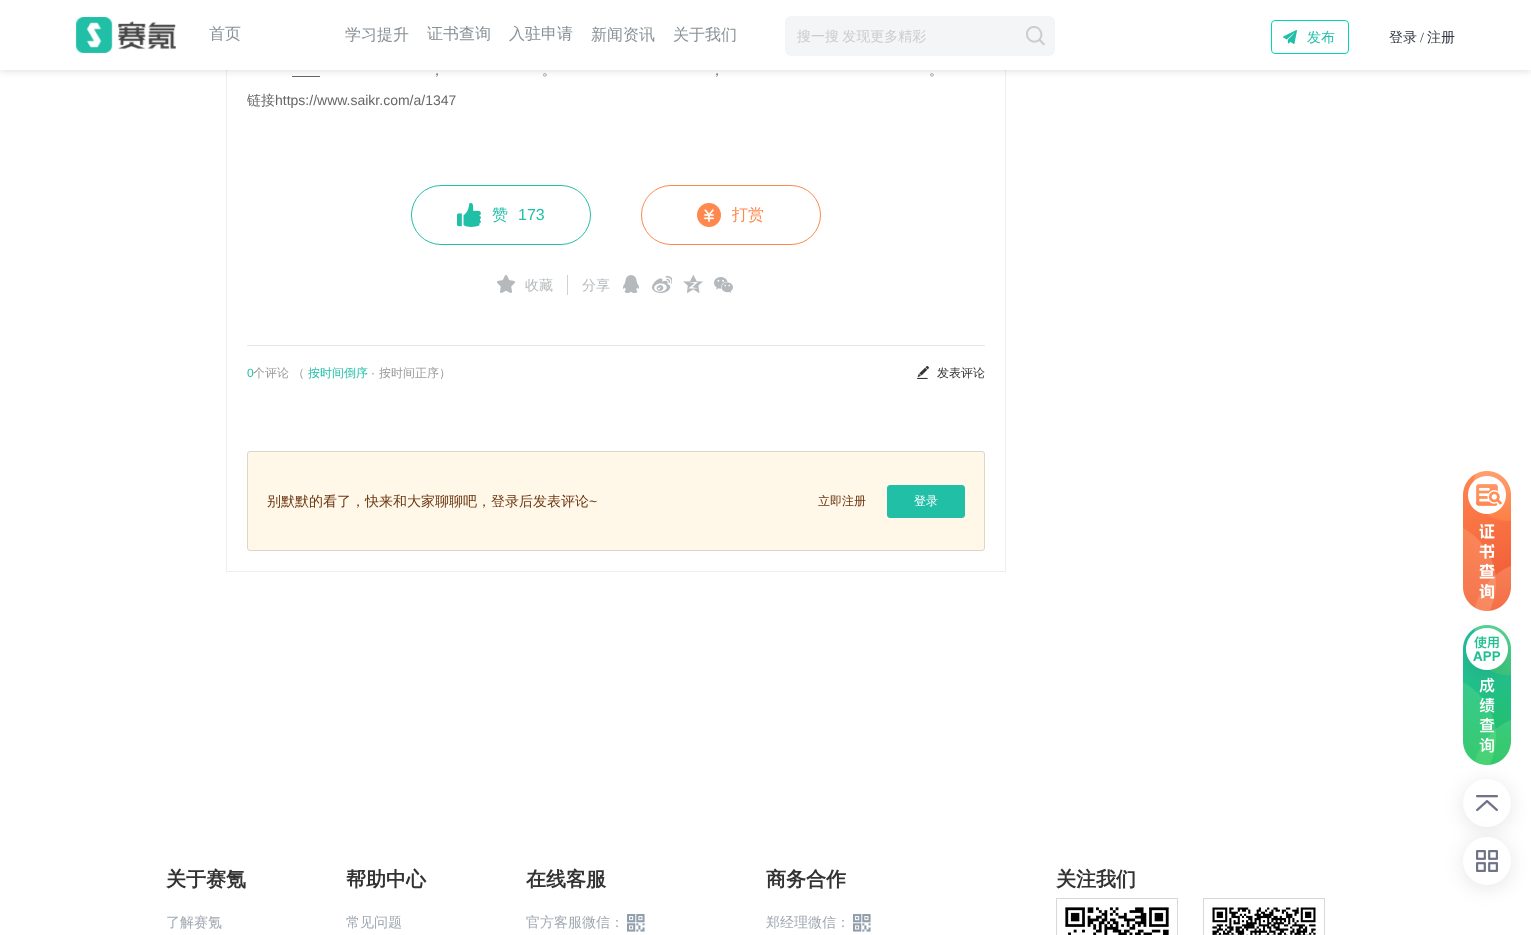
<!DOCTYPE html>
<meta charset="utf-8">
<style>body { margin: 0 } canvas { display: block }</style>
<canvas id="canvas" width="1531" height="935"></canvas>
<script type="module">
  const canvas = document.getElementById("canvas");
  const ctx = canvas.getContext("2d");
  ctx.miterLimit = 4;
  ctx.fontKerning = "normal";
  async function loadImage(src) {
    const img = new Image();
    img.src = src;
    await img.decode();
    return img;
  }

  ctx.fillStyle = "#ffffff";
  ctx.fillRect(0, 0, 1531, 935);
  ctx.strokeStyle = "#eeeeee";
  ctx.strokeRect(226.5, -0.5, 779, 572);
  ctx.fillStyle = "#666666";
  ctx.fillRect(292, 76, 28, 1);
  ctx.fillStyle = "rgba(0, 0, 0, 0.1)";
  ctx.filter = "blur(3px)";
  ctx.beginPath();
  ctx.rect(0, 2, 1531, 70);
  ctx.fill();
  ctx.filter = "none";
  ctx.fillStyle = "#ffffff";
  ctx.fillRect(0, 0, 1531, 70);
  ctx.drawImage(await loadImage("img1.png"), 75, 17, 101, 36);
  ctx.font = "500 16px WenQuanYi Zen Hei";
  ctx.fillStyle = "#889196";
  ctx.fillText("首页", 209, 39);
  ctx.fillText("学习提升", 345, 40);
  ctx.fillText("证书查询", 427, 39);
  ctx.fillText("入驻申请", 509, 39);
  ctx.fillText("新闻资讯", 591, 40);
  ctx.fillText("关于我们", 673, 40);
  ctx.fillStyle = "#f3f5f6";
  ctx.beginPath();
  ctx.roundRect(785, 16, 270, 40, 6);
  ctx.fill();
  ctx.wordSpacing = "-1px";
  ctx.font = "500 14px WenQuanYi Zen Hei";
  ctx.fillStyle = "#cccccc";
  ctx.fillText("搜一搜 发现更多精彩", 797, 41);
  ctx.drawImage(await loadImage("img2.png"), 1026, 26, 19, 20);
  ctx.beginPath();
  ctx.roundRect(1271.5, 20.5, 77, 33, 3.5);
  ctx.strokeStyle = "#00d6b5";
  ctx.stroke();
  ctx.drawImage(await loadImage("img3.png"), 1283, 30, 14, 14);
  ctx.wordSpacing = "0px";
  ctx.fillStyle = "#22bfa7";
  ctx.fillText("发布", 1307, 42);
  ctx.fillStyle = "#31363f";
  ctx.fillText("登录", 1389, 42);
  ctx.font = "14px Liberation Serif";
  ctx.fillText("/", 1420, 42);
  ctx.font = "500 14px WenQuanYi Zen Hei";
  ctx.fillText("注册", 1427, 42);
  ctx.fillStyle = "#666666";
  ctx.fillText("，", 430, 75);
  ctx.fillText("。", 542, 75);
  ctx.fillText("，", 710, 75);
  ctx.fillText("。", 929, 75);
  ctx.fillText("链接", 247, 105);
  ctx.font = "14px Liberation Sans";
  ctx.fillText("https://www.saikr.com/a/1347", 275, 105);
  ctx.beginPath();
  ctx.roundRect(411.5, 185.5, 179, 59, 29.5);
  ctx.strokeStyle = "#22bfa7";
  ctx.stroke();
  ctx.drawImage(await loadImage("img4.png"), 457, 203, 24, 24);
  ctx.font = "500 16px WenQuanYi Zen Hei";
  ctx.fillStyle = "#22bfa7";
  ctx.fillText("赞", 492, 220);
  ctx.font = "16px Liberation Sans";
  ctx.fillText("173", 518, 220);
  ctx.beginPath();
  ctx.roundRect(641.5, 185.5, 179, 59, 29.5);
  ctx.strokeStyle = "#ff884e";
  ctx.stroke();
  ctx.drawImage(await loadImage("img5.png"), 697, 203, 24, 24);
  ctx.font = "500 16px WenQuanYi Zen Hei";
  ctx.fillStyle = "#ff884e";
  ctx.fillText("打赏", 732, 220);
  ctx.fillStyle = "#cfd2d5";
  ctx.fillRect(567, 275, 1, 20);
  ctx.drawImage(await loadImage("img6.png"), 497, 275, 18, 18);
  ctx.font = "500 14px WenQuanYi Zen Hei";
  ctx.fillStyle = "#b5b9bc";
  ctx.fillText("收藏", 525, 290);
  ctx.fillText("分享", 582, 290);
  ctx.drawImage(await loadImage("img7.png"), 623, 275, 16, 18);
  ctx.drawImage(await loadImage("img8.png"), 652, 276, 20, 17);
  ctx.drawImage(await loadImage("img9.png"), 683, 275, 20, 18);
  ctx.drawImage(await loadImage("img10.png"), 714, 277, 19, 16);
  ctx.fillStyle = "#e6e6e6";
  ctx.fillRect(247, 345, 738, 1);
  ctx.font = "12px Liberation Sans";
  ctx.fillStyle = "#22bfa7";
  ctx.fillText("0", 247, 377);
  ctx.font = "500 12px WenQuanYi Zen Hei";
  ctx.fillStyle = "#999999";
  ctx.fillText("个评论 （", 253, 377);
  ctx.fillStyle = "#22bfa7";
  ctx.fillText("按时间倒序", 308, 377);
  ctx.font = "12px Liberation Sans";
  ctx.fillStyle = "#999999";
  ctx.fillText("·", 371, 377);
  ctx.font = "500 12px WenQuanYi Zen Hei";
  ctx.fillText("按时间正序）", 379, 377);
  ctx.drawImage(await loadImage("img11.png"), 917, 366, 12, 13);
  ctx.fillStyle = "#333333";
  ctx.fillText("发表评论", 937, 377);
  ctx.fillStyle = "#fff7e7";
  ctx.beginPath();
  ctx.roundRect(247.5, 451.5, 737, 99, 2.5);
  ctx.fill();
  ctx.strokeStyle = "#ded6c5";
  ctx.stroke();
  ctx.font = "500 14px WenQuanYi Zen Hei";
  ctx.fillStyle = "#6b3612";
  ctx.fillText("别默默的看了，快来和大家聊聊吧，登录后发表评论", 267, 506);
  ctx.font = "14px Liberation Sans";
  ctx.fillText("~", 589, 506);
  ctx.font = "500 12px WenQuanYi Zen Hei";
  ctx.fillText("立即注册", 818, 505);
  ctx.fillStyle = "#22bfa7";
  ctx.beginPath();
  ctx.roundRect(887.5, 485.5, 77, 32, 2.5);
  ctx.fill();
  ctx.strokeStyle = "#22bfa7";
  ctx.stroke();
  ctx.fillStyle = "#ffffff";
  ctx.fillText("登录", 914, 505);
  ctx.font = "bold 20px WenQuanYi Zen Hei";
  ctx.fillStyle = "#333333";
  ctx.fillText("关于赛氪", 166, 886);
  ctx.font = "500 14px WenQuanYi Zen Hei";
  ctx.fillStyle = "#a0a8b0";
  ctx.fillText("了解赛氪", 166, 927);
  ctx.font = "bold 20px WenQuanYi Zen Hei";
  ctx.fillStyle = "#333333";
  ctx.fillText("帮助中心", 346, 886);
  ctx.font = "500 14px WenQuanYi Zen Hei";
  ctx.fillStyle = "#a0a8b0";
  ctx.fillText("常见问题", 346, 927);
  ctx.font = "bold 20px WenQuanYi Zen Hei";
  ctx.fillStyle = "#333333";
  ctx.fillText("在线客服", 526, 886);
  ctx.font = "500 14px WenQuanYi Zen Hei";
  ctx.fillStyle = "#a0a8b0";
  ctx.fillText("官方客服微信：", 526, 927);
  ctx.drawImage(await loadImage("img12.png"), 627, 914, 18, 18);
  ctx.font = "bold 20px WenQuanYi Zen Hei";
  ctx.fillStyle = "#333333";
  ctx.fillText("商务合作", 766, 886);
  ctx.font = "500 14px WenQuanYi Zen Hei";
  ctx.fillStyle = "#a0a8b0";
  ctx.fillText("郑经理微信：", 766, 927);
  ctx.drawImage(await loadImage("img12.png"), 853, 914, 18, 18);
  ctx.font = "bold 20px WenQuanYi Zen Hei";
  ctx.fillStyle = "#333333";
  ctx.fillText("关注我们", 1056, 886);
  ctx.drawImage(await loadImage("img13.png"), 1065, 907, 104, 28);
  ctx.strokeStyle = "#d8d8d8";
  ctx.strokeRect(1056.5, 898.5, 121, 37);
  ctx.drawImage(await loadImage("img14.png"), 1212, 907, 104, 28);
  ctx.strokeRect(1203.5, 898.5, 121, 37);
  ctx.drawImage(await loadImage("img15.png"), 1463, 471, 48, 140);
  ctx.drawImage(await loadImage("img16.png"), 1463, 625, 48, 140);
  ctx.fillStyle = "rgba(0, 0, 0, 0.1)";
  ctx.filter = "blur(10px)";
  ctx.beginPath();
  ctx.roundRect(1463, 782, 48, 48, 24);
  ctx.fill();
  ctx.filter = "none";
  ctx.fillStyle = "#ffffff";
  ctx.beginPath();
  ctx.arc(1487, 803, 24, 0, Math.PI * 2);
  ctx.fill();
  ctx.drawImage(await loadImage("img17.png"), 1476, 795, 22, 16);
  ctx.fillStyle = "rgba(0, 0, 0, 0.1)";
  ctx.filter = "blur(10px)";
  ctx.beginPath();
  ctx.roundRect(1463, 840, 48, 48, 24);
  ctx.fill();
  ctx.filter = "none";
  ctx.fillStyle = "#ffffff";
  ctx.beginPath();
  ctx.arc(1487, 861, 24, 0, Math.PI * 2);
  ctx.fill();
  ctx.drawImage(await loadImage("img18.png"), 1476, 850, 22, 22);
</script>
